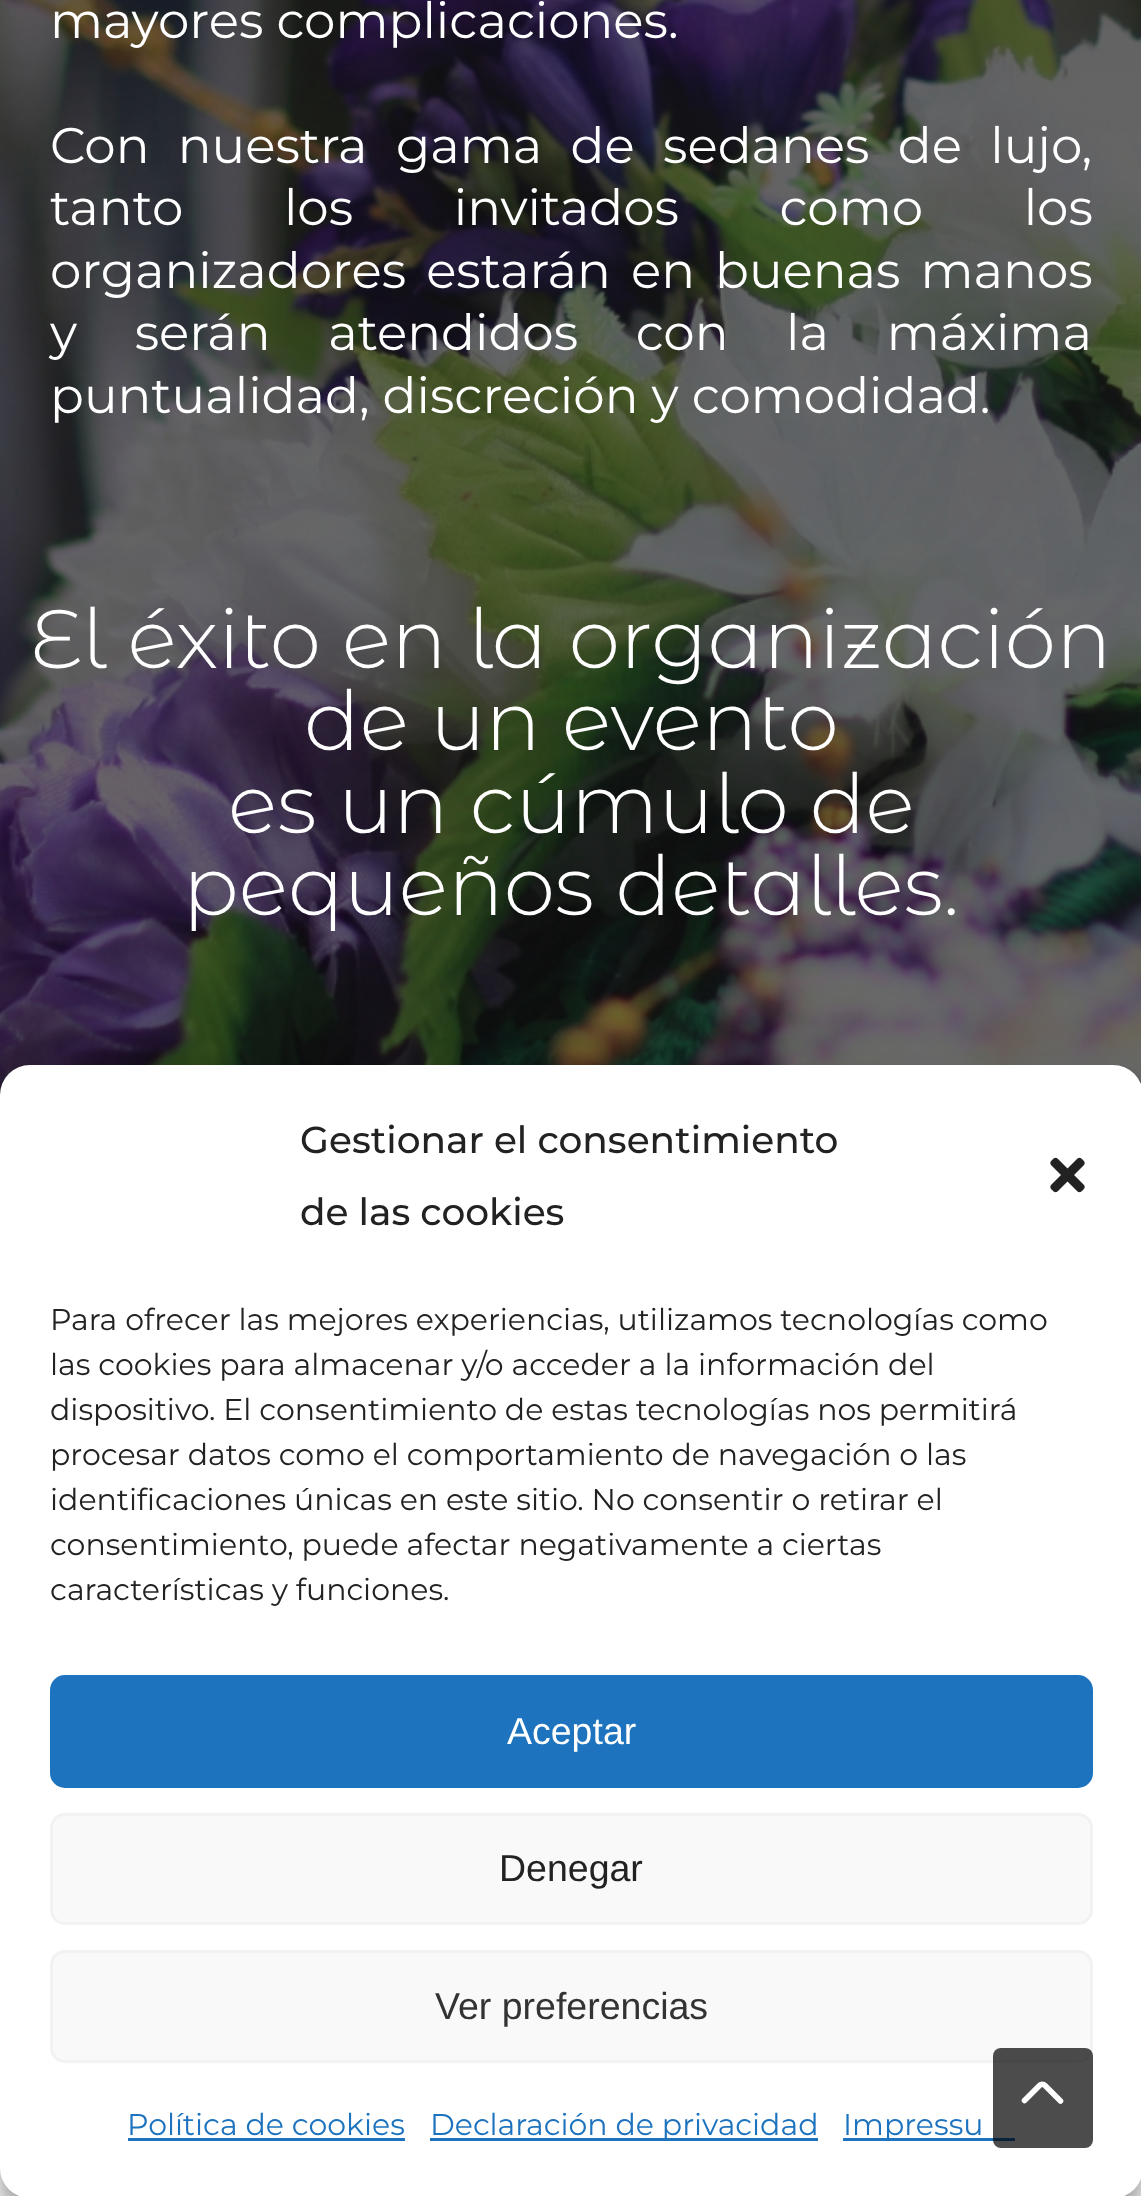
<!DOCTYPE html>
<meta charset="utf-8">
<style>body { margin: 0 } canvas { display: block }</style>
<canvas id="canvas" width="1141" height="2196"></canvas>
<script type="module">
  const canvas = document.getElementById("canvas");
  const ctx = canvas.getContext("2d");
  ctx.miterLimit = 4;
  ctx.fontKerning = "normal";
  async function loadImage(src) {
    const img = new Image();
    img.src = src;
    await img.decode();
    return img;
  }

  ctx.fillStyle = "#ffffff";
  ctx.fillRect(0, 0, 1141, 2196);
  ctx.drawImage(await loadImage("img1.png"), 0, 0, 1141, 1095);
  ctx.font = "50px Montserrat";
  ctx.fillText("mayores complicaciones.", 50, 38);
  ctx.wordSpacing = "15.25px";
  ctx.fillText("Con nuestra gama de sedanes de lujo,", 50, 163);
  ctx.wordSpacing = "87.5px";
  ctx.fillText("tanto los invitados como los", 50, 225);
  ctx.wordSpacing = "7px";
  ctx.fillText("organizadores estarán en buenas manos", 50, 288);
  ctx.wordSpacing = "44.5px";
  ctx.fillText("y serán atendidos con la máxima", 50, 350);
  ctx.wordSpacing = "0px";
  ctx.fillText("puntualidad, discreción y comodidad.", 50, 413);
  ctx.font = "300 82.5px Montserrat Alternates";
  ctx.fillText("El éxito en la organización", 30, 668);
  ctx.fillText("de un evento", 304, 750);
  ctx.fillText("es un cúmulo de", 228, 833);
  ctx.fillText("pequeños detalles.", 183, 915);
  ctx.fillStyle = "rgba(0, 0, 0, 0.23)";
  ctx.filter = "blur(7.5px)";
  ctx.beginPath();
  ctx.roundRect(0, 1080, 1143, 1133, 30);
  ctx.fill();
  ctx.filter = "none";
  ctx.fillStyle = "rgba(0, 0, 0, 0.19)";
  ctx.filter = "blur(25px)";
  ctx.beginPath();
  ctx.roundRect(0, 1090, 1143, 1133, 30);
  ctx.fill();
  ctx.filter = "none";
  ctx.fillStyle = "#ffffff";
  ctx.beginPath();
  ctx.roundRect(0, 1065, 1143, 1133, 30);
  ctx.fill();
  ctx.font = "500 37.5px Montserrat";
  ctx.fillStyle = "#222222";
  ctx.fillText("Gestionar el consentimiento", 300, 1153);
  ctx.fillText("de las cookies", 300, 1225);
  ctx.drawImage(await loadImage("img2.png"), 1050, 1157, 35, 36);
  ctx.font = "30px Montserrat";
  ctx.fillText("Para ofrecer las mejores experiencias, utilizamos tecnologías como", 50, 1330);
  ctx.fillText("las cookies para almacenar y/o acceder a la información del", 50, 1375);
  ctx.fillText("dispositivo. El consentimiento de estas tecnologías nos permitirá", 50, 1420);
  ctx.fillText("procesar datos como el comportamiento de navegación o las", 50, 1465);
  ctx.fillText("identificaciones únicas en este sitio. No consentir o retirar el", 50, 1510);
  ctx.fillText("consentimiento, puede afectar negativamente a ciertas", 50, 1555);
  ctx.fillText("características y funciones.", 50, 1600);
  ctx.fillStyle = "#1e73be";
  ctx.beginPath();
  ctx.roundRect(51.5, 1676.5, 1040, 110, 13.5);
  ctx.fill();
  ctx.strokeStyle = "#1e73be";
  ctx.lineWidth = 3;
  ctx.stroke();
  ctx.font = "37.5px Liberation Sans";
  ctx.fillStyle = "#ffffff";
  ctx.fillText("Aceptar", 507, 1744);
  ctx.fillStyle = "#f9f9f9";
  ctx.beginPath();
  ctx.roundRect(51.5, 1814.5, 1040, 109, 13.5);
  ctx.fill();
  ctx.strokeStyle = "#f2f2f2";
  ctx.stroke();
  ctx.fillStyle = "#222222";
  ctx.fillText("Denegar", 499, 1881);
  ctx.fillStyle = "#f9f9f9";
  ctx.beginPath();
  ctx.roundRect(51.5, 1951.5, 1040, 110, 13.5);
  ctx.fill();
  ctx.stroke();
  ctx.fillStyle = "#333333";
  ctx.fillText("Ver preferencias", 435, 2019);
  ctx.font = "30px Montserrat";
  ctx.fillStyle = "#1e73be";
  ctx.fillText("Política de cookies", 127, 2135);
  ctx.fillRect(128, 2138, 277, 3);
  ctx.fillRect(430, 2138, 388, 3);
  ctx.fillText("Declaración de privacidad", 430, 2135);
  ctx.fillRect(843, 2138, 172, 3);
  ctx.fillText("Impressu", 843, 2135);
  ctx.fillStyle = "rgba(0, 0, 0, 0.7)";
  ctx.beginPath();
  ctx.roundRect(993, 2048, 100, 100, 8);
  ctx.fill();
  ctx.beginPath();
  ctx.moveTo(1060.5, 2101);
  ctx.lineTo(1045, 2085.5);
  ctx.bezierCurveTo(1043.5, 2084, 1041, 2084, 1039.5, 2085.5);
  ctx.lineTo(1024.5, 2100.5);
  ctx.strokeStyle = "#ffffff";
  ctx.lineWidth = 5.6;
  ctx.lineCap = "round";
  ctx.lineJoin = "bevel";
  ctx.stroke();
</script>
